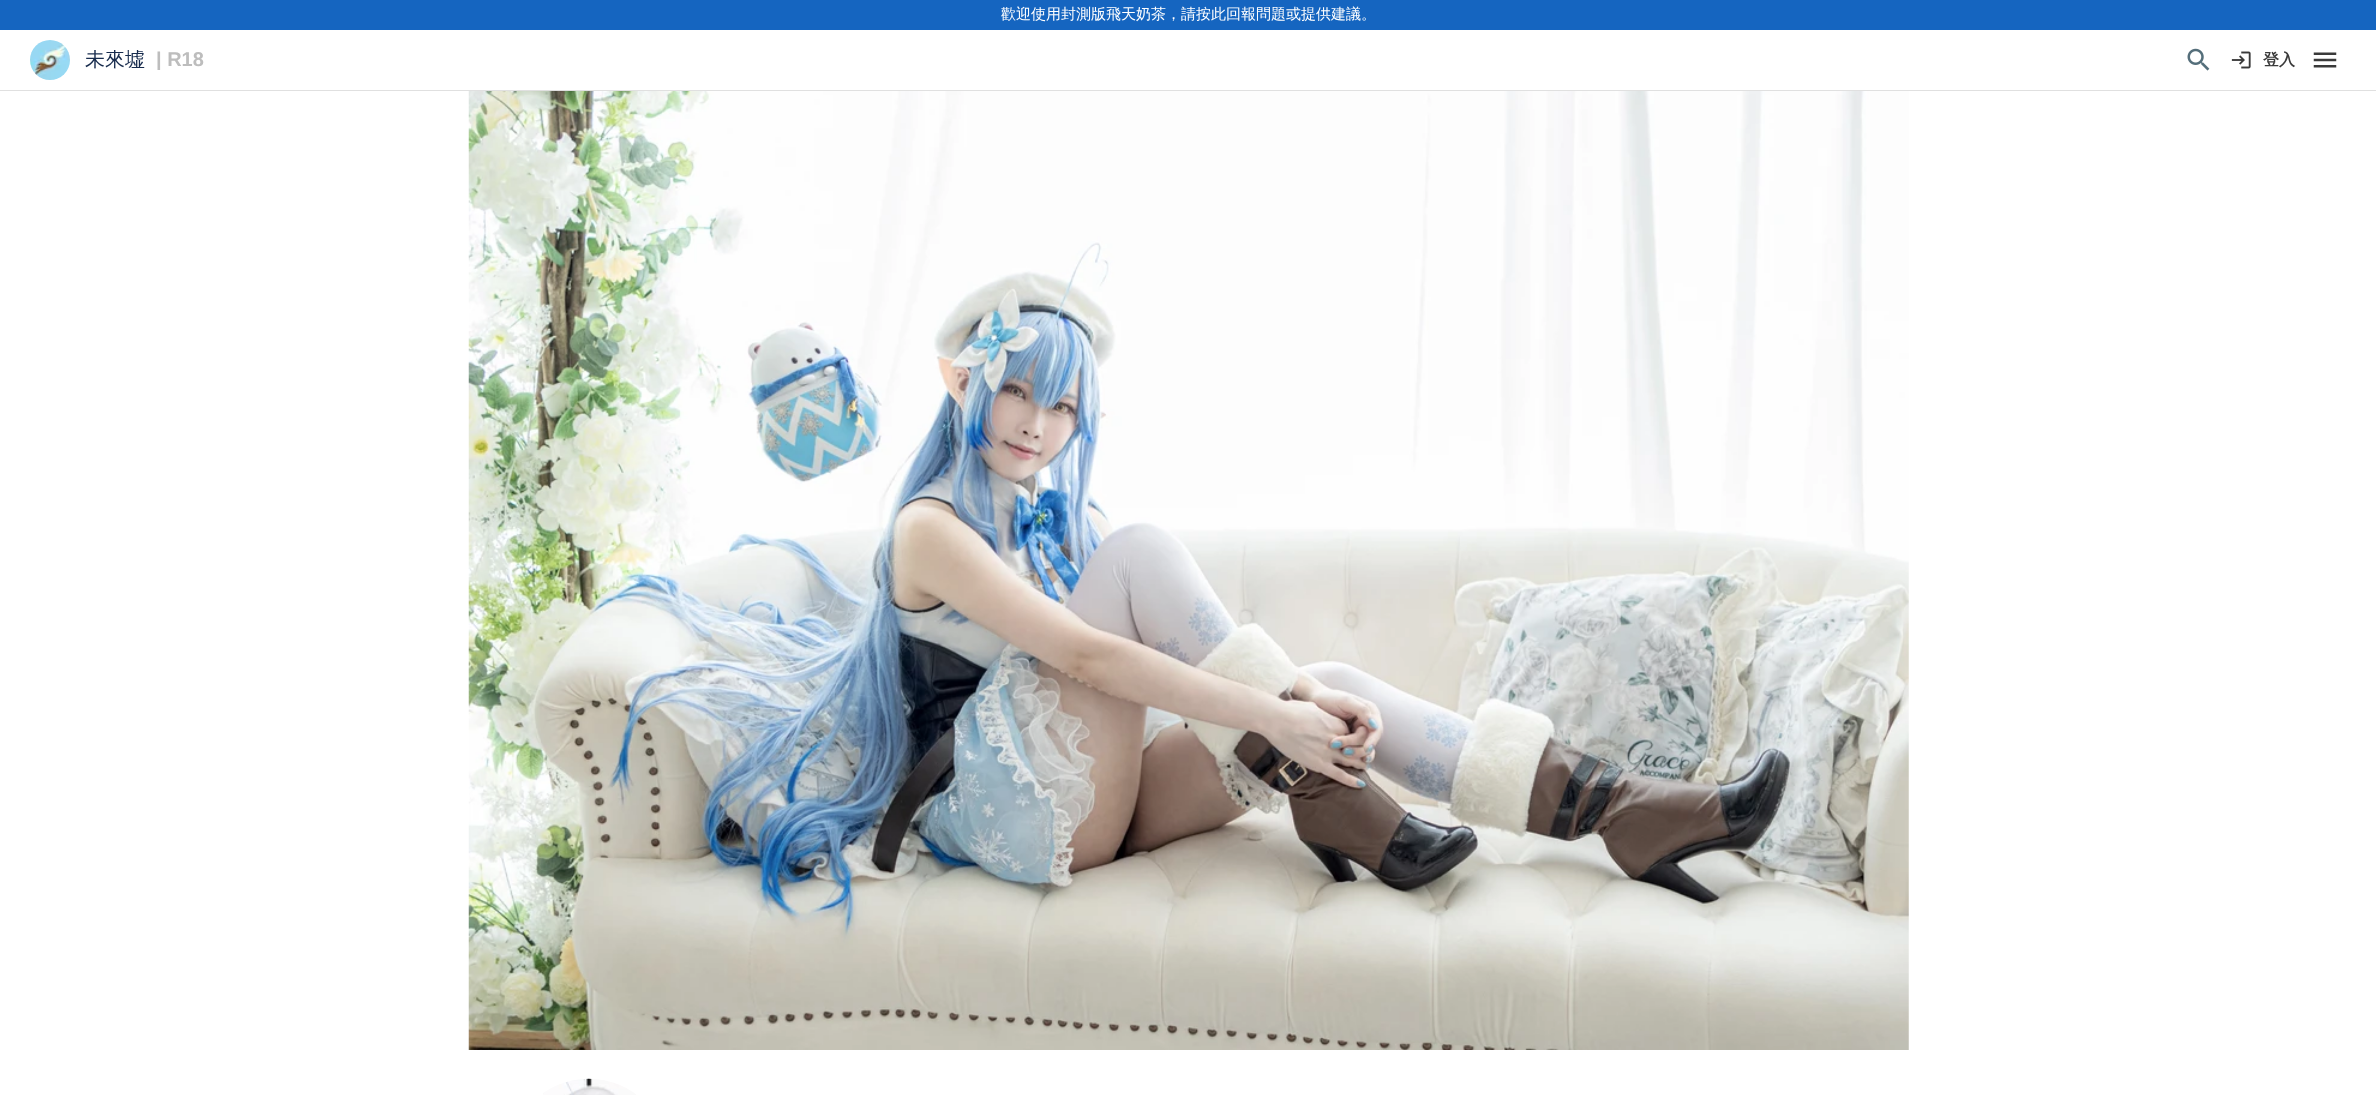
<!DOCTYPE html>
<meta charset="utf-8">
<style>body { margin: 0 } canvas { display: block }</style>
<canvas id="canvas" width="2376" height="1095"></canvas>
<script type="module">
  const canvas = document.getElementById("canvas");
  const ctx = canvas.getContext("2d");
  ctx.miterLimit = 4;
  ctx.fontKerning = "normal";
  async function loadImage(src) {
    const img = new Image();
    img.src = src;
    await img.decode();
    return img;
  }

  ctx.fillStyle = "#ffffff";
  ctx.fillRect(0, 0, 2376, 1095);
  ctx.fillStyle = "#1565c0";
  ctx.fillRect(0, 0, 2376, 30);
  ctx.font = "500 15px WenQuanYi Zen Hei";
  ctx.fillStyle = "#ffffff";
  ctx.fillText("歡迎使用封測版飛天奶茶，請按此回報問題或提供建議。", 1001, 19);
  ctx.drawImage(await loadImage("img1.png"), 30, 40, 40, 40);
  ctx.save();
  ctx.beginPath();
  ctx.rect(85, 50, 60, 20);
  ctx.clip();
  ctx.font = "500 20px WenQuanYi Zen Hei";
  ctx.fillStyle = "#172b4d";
  ctx.fillText("未來墟", 85, 66);
  ctx.restore();
  ctx.save();
  ctx.beginPath();
  ctx.rect(150, 50, 54, 20);
  ctx.clip();
  ctx.font = "bold 20px Liberation Sans";
  ctx.fillStyle = "#bdbdbd";
  ctx.fillText("| R18", 156, 66);
  ctx.restore();
  ctx.drawImage(await loadImage("img2.png"), 2187, 48, 23, 23);
  ctx.drawImage(await loadImage("img3.png"), 2231, 51, 20, 18);
  ctx.font = "bold 16px WenQuanYi Zen Hei";
  ctx.fillStyle = "#3a3a3a";
  ctx.fillText("登入", 2263, 65);
  ctx.drawImage(await loadImage("img4.png"), 2313, 52, 24, 16);
  ctx.fillStyle = "#e0e0e0";
  ctx.fillRect(0, 90, 2376, 1);
  ctx.drawImage(await loadImage("img5.png"), 468, 91, 1441, 959);
  ctx.drawImage(await loadImage("img6.png"), 543, 1078, 93, 17);
</script>
